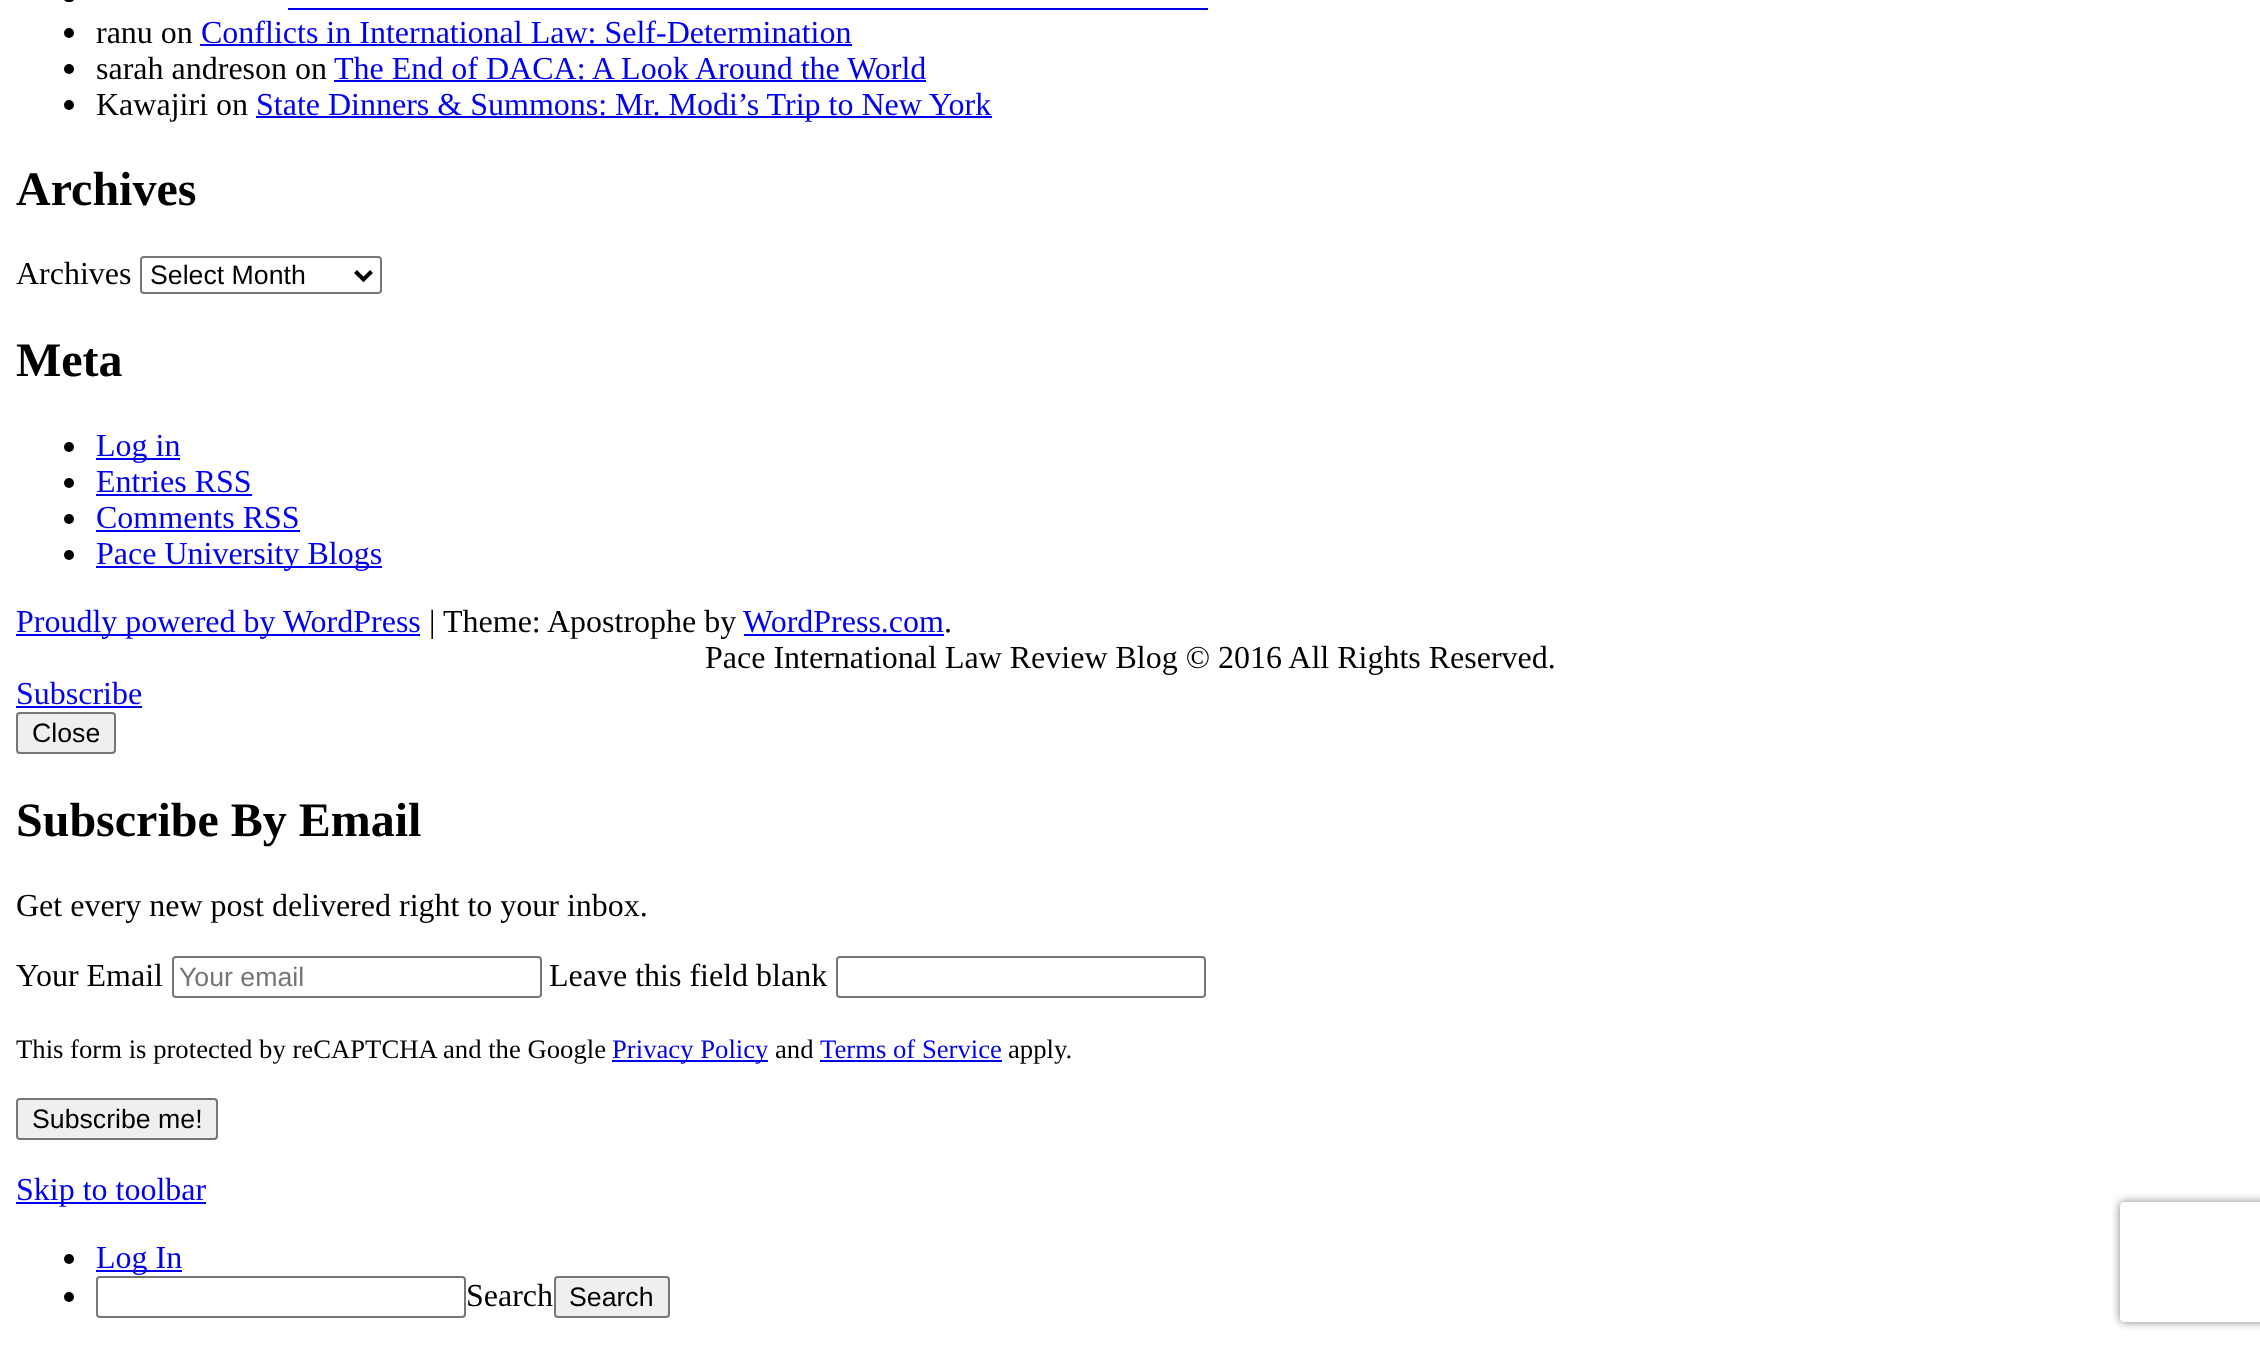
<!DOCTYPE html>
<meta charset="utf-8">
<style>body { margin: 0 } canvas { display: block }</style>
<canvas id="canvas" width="2260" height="1349"></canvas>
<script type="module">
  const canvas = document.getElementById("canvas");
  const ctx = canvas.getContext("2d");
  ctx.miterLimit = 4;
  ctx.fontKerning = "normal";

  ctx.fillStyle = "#ffffff";
  ctx.fillRect(0, 0, 2260, 1349);
  ctx.fillStyle = "#000000";
  ctx.beginPath();
  ctx.roundRect(64, -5, 10, 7, 5);
  ctx.fill();
  ctx.fillStyle = "#0000ee";
  ctx.fillRect(288, 8, 920, 2);
  ctx.fillStyle = "#000000";
  ctx.beginPath();
  ctx.arc(69, 33, 5, 0, Math.PI * 2);
  ctx.fill();
  ctx.font = "32px Liberation Serif";
  ctx.fillText("ranu on", 96, 43);
  ctx.fillStyle = "#0000ee";
  ctx.fillText("Conflicts in International Law: Self-Determination", 201, 43);
  ctx.fillRect(200, 44, 652, 2);
  ctx.fillStyle = "#000000";
  ctx.beginPath();
  ctx.arc(69, 69, 5, 0, Math.PI * 2);
  ctx.fill();
  ctx.fillText("sarah andreson on", 96, 79);
  ctx.fillStyle = "#0000ee";
  ctx.fillText("The End of DACA: A Look Around the World", 334, 79);
  ctx.fillRect(334, 80, 592, 2);
  ctx.fillStyle = "#000000";
  ctx.beginPath();
  ctx.arc(69, 105, 5, 0, Math.PI * 2);
  ctx.fill();
  ctx.fillText("Kawajiri on", 96, 115);
  ctx.fillStyle = "#0000ee";
  ctx.fillRect(256, 116, 736, 2);
  ctx.fillText("State Dinners & Summons: Mr. Modi’s Trip to New York", 256, 115);
  ctx.font = "bold 48px Liberation Serif";
  ctx.fillStyle = "#000000";
  ctx.fillText("Archives", 16, 205);
  ctx.font = "32px Liberation Serif";
  ctx.fillText("Archives", 16, 284);
  ctx.beginPath();
  ctx.roundRect(141, 257, 240, 36, 3);
  ctx.strokeStyle = "#767676";
  ctx.lineWidth = 2;
  ctx.stroke();
  ctx.beginPath();
  ctx.moveTo(355.5, 271.5);
  ctx.lineTo(363.5, 279.5);
  ctx.lineTo(371.5, 271.5);
  ctx.strokeStyle = "#000000";
  ctx.lineWidth = 4;
  ctx.stroke();
  ctx.font = "26.7px Liberation Sans";
  ctx.fillText("Select Month", 150, 284);
  ctx.font = "bold 48px Liberation Serif";
  ctx.fillText("Meta", 16, 376);
  ctx.beginPath();
  ctx.arc(69, 447, 5, 0, Math.PI * 2);
  ctx.fill();
  ctx.fillStyle = "#0000ee";
  ctx.fillRect(96, 458, 84, 2);
  ctx.font = "32px Liberation Serif";
  ctx.fillText("Log in", 96, 456);
  ctx.fillStyle = "#000000";
  ctx.beginPath();
  ctx.arc(69, 483, 5, 0, Math.PI * 2);
  ctx.fill();
  ctx.fillStyle = "#0000ee";
  ctx.fillText("Entries RSS", 96, 492);
  ctx.fillRect(96, 494, 156, 2);
  ctx.fillStyle = "#000000";
  ctx.beginPath();
  ctx.arc(69, 519, 5, 0, Math.PI * 2);
  ctx.fill();
  ctx.fillStyle = "#0000ee";
  ctx.fillText("Comments RSS", 96, 528);
  ctx.fillRect(96, 530, 204, 2);
  ctx.fillStyle = "#000000";
  ctx.beginPath();
  ctx.arc(69, 555, 5, 0, Math.PI * 2);
  ctx.fill();
  ctx.fillStyle = "#0000ee";
  ctx.fillRect(96, 566, 286, 2);
  ctx.fillText("Pace University Blogs", 96, 564);
  ctx.fillRect(16, 634, 404, 2);
  ctx.fillText("Proudly powered by WordPress", 16, 632);
  ctx.fillStyle = "#000000";
  ctx.fillText("|", 429, 632);
  ctx.fillText("Theme: Apostrophe by", 443, 632);
  ctx.fillStyle = "#0000ee";
  ctx.fillText("WordPress.com", 743, 632);
  ctx.fillRect(744, 634, 200, 2);
  ctx.fillStyle = "#000000";
  ctx.fillText(".", 944, 632);
  ctx.fillText("Pace International Law Review Blog © 2016 All Rights Reserved.", 705, 668);
  ctx.fillStyle = "#0000ee";
  ctx.fillText("Subscribe", 16, 704);
  ctx.fillRect(16, 706, 126, 2);
  ctx.fillStyle = "#efefef";
  ctx.beginPath();
  ctx.roundRect(17, 713, 98, 40, 3);
  ctx.fill();
  ctx.strokeStyle = "#767676";
  ctx.lineWidth = 2;
  ctx.stroke();
  ctx.font = "26.7px Liberation Sans";
  ctx.fillStyle = "#000000";
  ctx.fillText("Close", 32, 742);
  ctx.font = "bold 48px Liberation Serif";
  ctx.fillText("Subscribe By Email", 16, 836);
  ctx.font = "32px Liberation Serif";
  ctx.fillText("Get every new post delivered right to your inbox.", 16, 916);
  ctx.fillText("Your Email", 16, 986);
  ctx.beginPath();
  ctx.roundRect(173, 957, 368, 40, 3);
  ctx.stroke();
  ctx.font = "26.7px Liberation Sans";
  ctx.fillStyle = "#757575";
  ctx.fillText("Your email", 179, 986);
  ctx.font = "32px Liberation Serif";
  ctx.fillStyle = "#000000";
  ctx.fillText("Leave this field blank", 549, 986);
  ctx.beginPath();
  ctx.roundRect(837, 957, 368, 40, 3);
  ctx.stroke();
  ctx.font = "26.7px Liberation Serif";
  ctx.fillText("This form is protected by reCAPTCHA and the Google", 16, 1058);
  ctx.fillStyle = "#0000ee";
  ctx.fillRect(612, 1060, 156, 2);
  ctx.fillText("Privacy Policy", 612, 1058);
  ctx.fillStyle = "#000000";
  ctx.fillText("and", 775, 1058);
  ctx.fillStyle = "#0000ee";
  ctx.fillText("Terms of Service", 820, 1058);
  ctx.fillRect(820, 1060, 182, 2);
  ctx.fillStyle = "#000000";
  ctx.fillText("apply.", 1008, 1058);
  ctx.fillStyle = "#efefef";
  ctx.beginPath();
  ctx.roundRect(17, 1099, 200, 40, 3);
  ctx.fill();
  ctx.stroke();
  ctx.font = "26.7px Liberation Sans";
  ctx.fillStyle = "#000000";
  ctx.fillText("Subscribe me!", 32, 1128);
  ctx.fillStyle = "#0000ee";
  ctx.fillRect(16, 1202, 190, 2);
  ctx.font = "32px Liberation Serif";
  ctx.fillText("Skip to toolbar", 16, 1200);
  ctx.fillStyle = "#000000";
  ctx.beginPath();
  ctx.arc(69, 1259, 5, 0, Math.PI * 2);
  ctx.fill();
  ctx.fillStyle = "#0000ee";
  ctx.fillRect(96, 1270, 86, 2);
  ctx.fillText("Log In", 96, 1268);
  ctx.fillStyle = "#000000";
  ctx.beginPath();
  ctx.arc(69, 1297, 5, 0, Math.PI * 2);
  ctx.fill();
  ctx.beginPath();
  ctx.roundRect(97, 1277, 368, 40, 3);
  ctx.stroke();
  ctx.fillText("Search", 466, 1306);
  ctx.fillStyle = "#efefef";
  ctx.beginPath();
  ctx.roundRect(555, 1277, 114, 40, 3);
  ctx.fill();
  ctx.stroke();
  ctx.font = "26.7px Liberation Sans";
  ctx.fillStyle = "#000000";
  ctx.fillText("Search", 569, 1306);
  ctx.save();
  ctx.beginPath();
  ctx.moveTo(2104, 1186);
  ctx.lineTo(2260, 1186);
  ctx.lineTo(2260, 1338);
  ctx.lineTo(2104, 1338);
  ctx.closePath();
  ctx.moveTo(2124, 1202);
  ctx.lineTo(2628, 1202);
  ctx.bezierCurveTo(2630, 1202, 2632, 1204, 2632, 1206);
  ctx.lineTo(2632, 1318);
  ctx.bezierCurveTo(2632, 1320, 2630, 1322, 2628, 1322);
  ctx.lineTo(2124, 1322);
  ctx.bezierCurveTo(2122, 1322, 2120, 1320, 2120, 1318);
  ctx.lineTo(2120, 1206);
  ctx.bezierCurveTo(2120, 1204, 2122, 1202, 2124, 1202);
  ctx.closePath();
  ctx.clip("evenodd");
  ctx.fillStyle = "#808080";
  ctx.filter = "blur(5px)";
  ctx.beginPath();
  ctx.roundRect(2120, 1202, 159, 120, 4);
  ctx.fill();
  ctx.filter = "none";
  ctx.restore();
</script>
